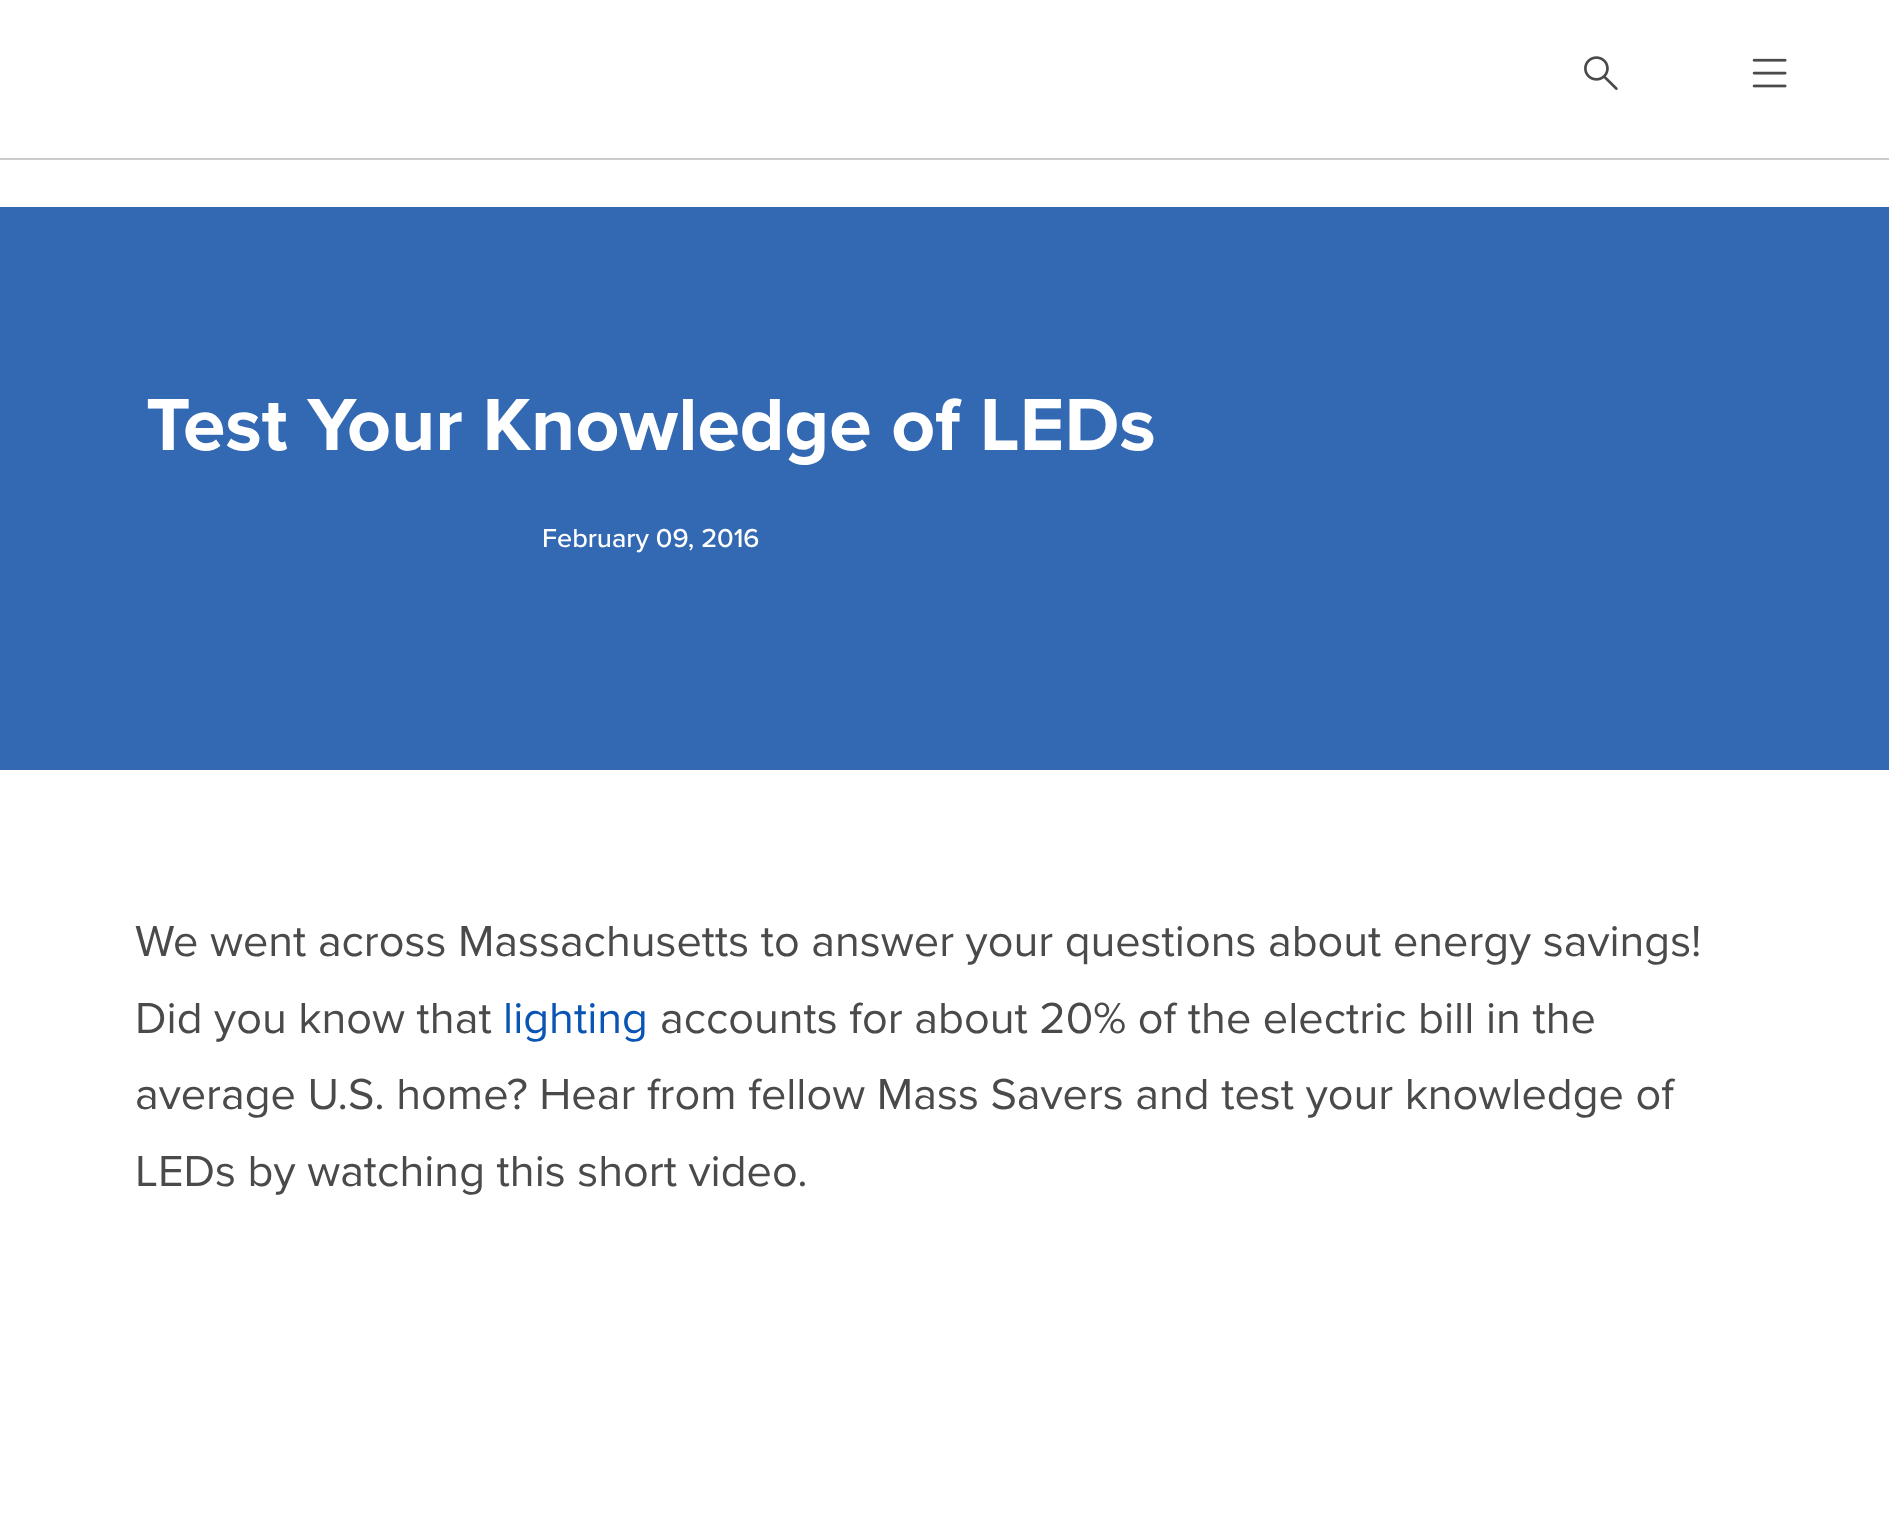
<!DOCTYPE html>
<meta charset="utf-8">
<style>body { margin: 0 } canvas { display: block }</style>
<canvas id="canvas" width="1889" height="1535"></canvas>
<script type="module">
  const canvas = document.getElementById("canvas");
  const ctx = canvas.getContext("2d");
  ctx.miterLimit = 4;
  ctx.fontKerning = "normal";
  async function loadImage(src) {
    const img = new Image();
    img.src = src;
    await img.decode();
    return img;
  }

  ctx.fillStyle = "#ffffff";
  ctx.fillRect(0, 0, 1889, 1535);
  ctx.fillStyle = "#cccccc";
  ctx.fillRect(0, 158, 1889, 2);
  ctx.drawImage(await loadImage("img1.png"), 1584, 56, 34, 34);
  ctx.drawImage(await loadImage("img2.png"), 1752, 58, 35, 30);
  ctx.fillStyle = "#3369b2";
  ctx.fillRect(0, 207, 1889, 563);
  ctx.font = "bold 76.5px Proxima Nova";
  ctx.fillStyle = "#ffffff";
  ctx.fillText("Test Your Knowledge of LEDs", 146, 450);
  ctx.font = "500 27px Proxima Nova";
  ctx.fillText("February 09, 2016", 542, 547);
  ctx.font = "45px Proxima Nova";
  ctx.fillStyle = "#4a4a4a";
  ctx.fillText("We went across Massachusetts to answer your questions about energy savings!", 135, 956);
  ctx.fillText("Did you know that", 135, 1033);
  ctx.fillStyle = "#0a55b4";
  ctx.fillText("lighting", 503, 1033);
  ctx.fillStyle = "#4a4a4a";
  ctx.fillText("accounts for about 20% of the electric bill in the", 660, 1033);
  ctx.fillText("average U.S. home? Hear from fellow Mass Savers and test your knowledge of", 135, 1109);
  ctx.fillText("LEDs by watching this short video.", 135, 1186);
</script>
